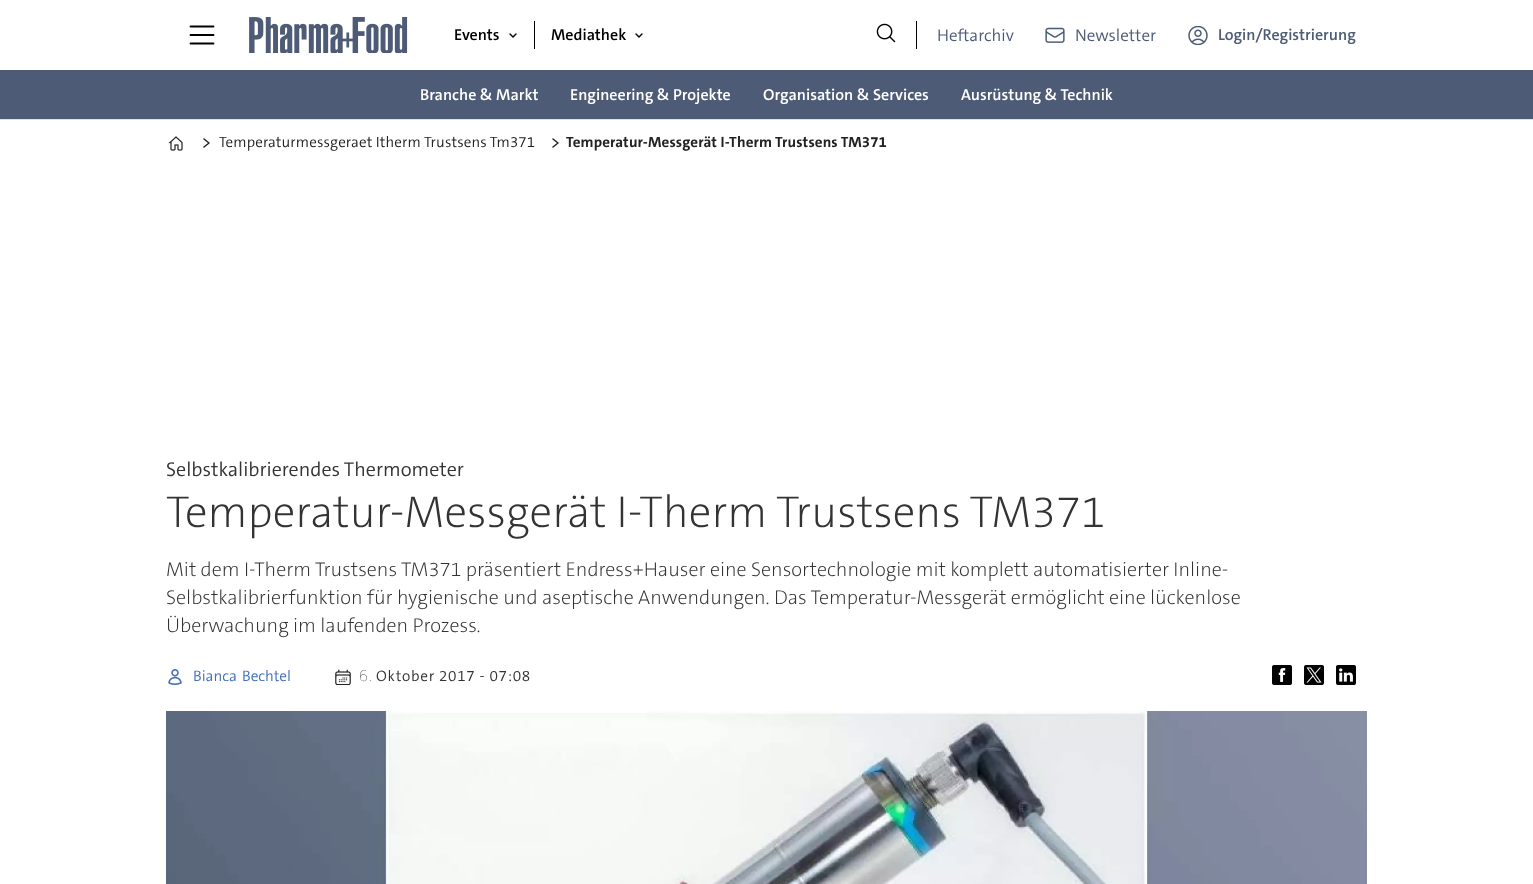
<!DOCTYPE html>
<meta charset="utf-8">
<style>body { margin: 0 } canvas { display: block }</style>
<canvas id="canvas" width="1533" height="884"></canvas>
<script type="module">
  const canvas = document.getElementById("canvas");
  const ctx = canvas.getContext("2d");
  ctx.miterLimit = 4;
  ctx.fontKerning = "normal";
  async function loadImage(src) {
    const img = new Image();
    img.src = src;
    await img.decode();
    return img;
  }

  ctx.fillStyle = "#ffffff";
  ctx.fillRect(0, 0, 1533, 884);
  ctx.beginPath();
  ctx.moveTo(190.5, 26.5);
  ctx.lineTo(213.5, 26.5);
  ctx.moveTo(190.5, 35);
  ctx.lineTo(213.5, 35);
  ctx.moveTo(190.5, 43.5);
  ctx.lineTo(213.5, 43.5);
  ctx.strokeStyle = "#000000";
  ctx.lineWidth = 1.8;
  ctx.lineCap = "round";
  ctx.stroke();
  ctx.drawImage(await loadImage("img1.png"), 249, 17, 159, 36);
  ctx.fillStyle = "#000000";
  ctx.fillRect(534, 21, 1, 28);
  ctx.font = "600 16px 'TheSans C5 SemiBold'";
  ctx.fillText("Events", 454, 40);
  ctx.beginPath();
  ctx.moveTo(510, 34);
  ctx.lineTo(513, 37);
  ctx.lineTo(516, 34);
  ctx.lineWidth = 1.4;
  ctx.lineJoin = "round";
  ctx.stroke();
  ctx.fillText("Mediathek", 551, 40);
  ctx.beginPath();
  ctx.moveTo(636, 34);
  ctx.lineTo(639, 37);
  ctx.lineTo(642, 34);
  ctx.stroke();
  ctx.drawImage(await loadImage("img2.png"), 876, 23, 20, 20);
  ctx.fillRect(916, 21, 1, 28);
  ctx.font = "300 17px 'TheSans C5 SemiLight'";
  ctx.fillStyle = "#4d5b76";
  ctx.fillText("Heftarchiv", 937, 41);
  ctx.drawImage(await loadImage("img3.png"), 1045, 27, 20, 16);
  ctx.fillText("Newsletter", 1075, 41);
  ctx.drawImage(await loadImage("img4.png"), 1188, 26, 20, 19);
  ctx.font = "600 16px 'TheSans C5 SemiBold'";
  ctx.fillText("Login/Registrierung", 1218, 40);
  ctx.fillRect(0, 70, 1533, 49);
  ctx.fillStyle = "#dee2e6";
  ctx.fillRect(0, 119, 1533, 1);
  ctx.fillStyle = "#ffffff";
  ctx.fillText("Branche & Markt", 420, 100);
  ctx.fillText("Engineering & Projekte", 570, 100);
  ctx.fillText("Organisation & Services", 763, 100);
  ctx.fillText("Ausrüstung & Technik", 961, 100);
  ctx.drawImage(await loadImage("img5.png"), 168, 136, 15, 15);
  ctx.beginPath();
  ctx.moveTo(204, 139);
  ctx.lineTo(209, 143);
  ctx.lineTo(204, 147);
  ctx.strokeStyle = "#222222";
  ctx.lineWidth = 1.5;
  ctx.stroke();
  ctx.letterSpacing = "0.15px";
  ctx.font = "300 15px 'TheSans C5 SemiLight'";
  ctx.fillStyle = "#222222";
  ctx.fillText("Temperaturmessgeraet Itherm Trustsens Tm371", 219, 147);
  ctx.beginPath();
  ctx.moveTo(553, 139);
  ctx.lineTo(558, 143);
  ctx.lineTo(553, 147);
  ctx.stroke();
  ctx.font = "bold 15px 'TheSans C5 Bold'";
  ctx.fillText("Temperatur-Messgerät I-Therm Trustsens TM371", 566, 147);
  ctx.letterSpacing = "0px";
  ctx.font = "300 20px 'TheSans C5 SemiLight'";
  ctx.fillStyle = "#333333";
  ctx.fillText("Selbstkalibrierendes Thermometer", 166, 476);
  ctx.font = "200 45px 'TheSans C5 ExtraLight'";
  ctx.fillText("Temperatur-Messgerät I-Therm Trustsens TM371", 166, 527);
  ctx.font = "200 20px 'TheSans C5 ExtraLight'";
  ctx.fillText("Mit dem I-Therm Trustsens TM371 präsentiert Endress+Hauser eine Sensortechnologie mit komplett automatisierter Inline-", 166, 576);
  ctx.fillText("Selbstkalibrierfunktion für hygienische und aseptische Anwendungen. Das Temperatur-Messgerät ermöglicht eine lückenlose", 166, 604);
  ctx.fillText("Überwachung im laufenden Prozess.", 166, 632);
  ctx.drawImage(await loadImage("img6.png"), 168, 669, 14, 16);
  ctx.font = "300 15.25px 'TheSans C5 SemiLight'";
  ctx.fillStyle = "#4570ba";
  ctx.fillText("Bianca", 193, 681);
  ctx.fillText("Bechtel", 242, 681);
  ctx.drawImage(await loadImage("img7.png"), 335, 669, 16, 16);
  ctx.letterSpacing = "0.75px";
  ctx.font = "100 15.25px Noto Sans";
  ctx.fillStyle = "#333333";
  ctx.fillText("6.", 359, 681);
  ctx.font = "300 15.25px 'TheSans C5 SemiLight'";
  ctx.fillText("Oktober 2017 - 07:08", 376, 681);
  ctx.drawImage(await loadImage("img8.png"), 1272, 665, 20, 20);
  ctx.drawImage(await loadImage("img9.png"), 1304, 665, 20, 20);
  ctx.drawImage(await loadImage("img10.png"), 1336, 665, 20, 20);
  ctx.drawImage(await loadImage("img11.png"), 166, 711, 1201, 173);
</script>
